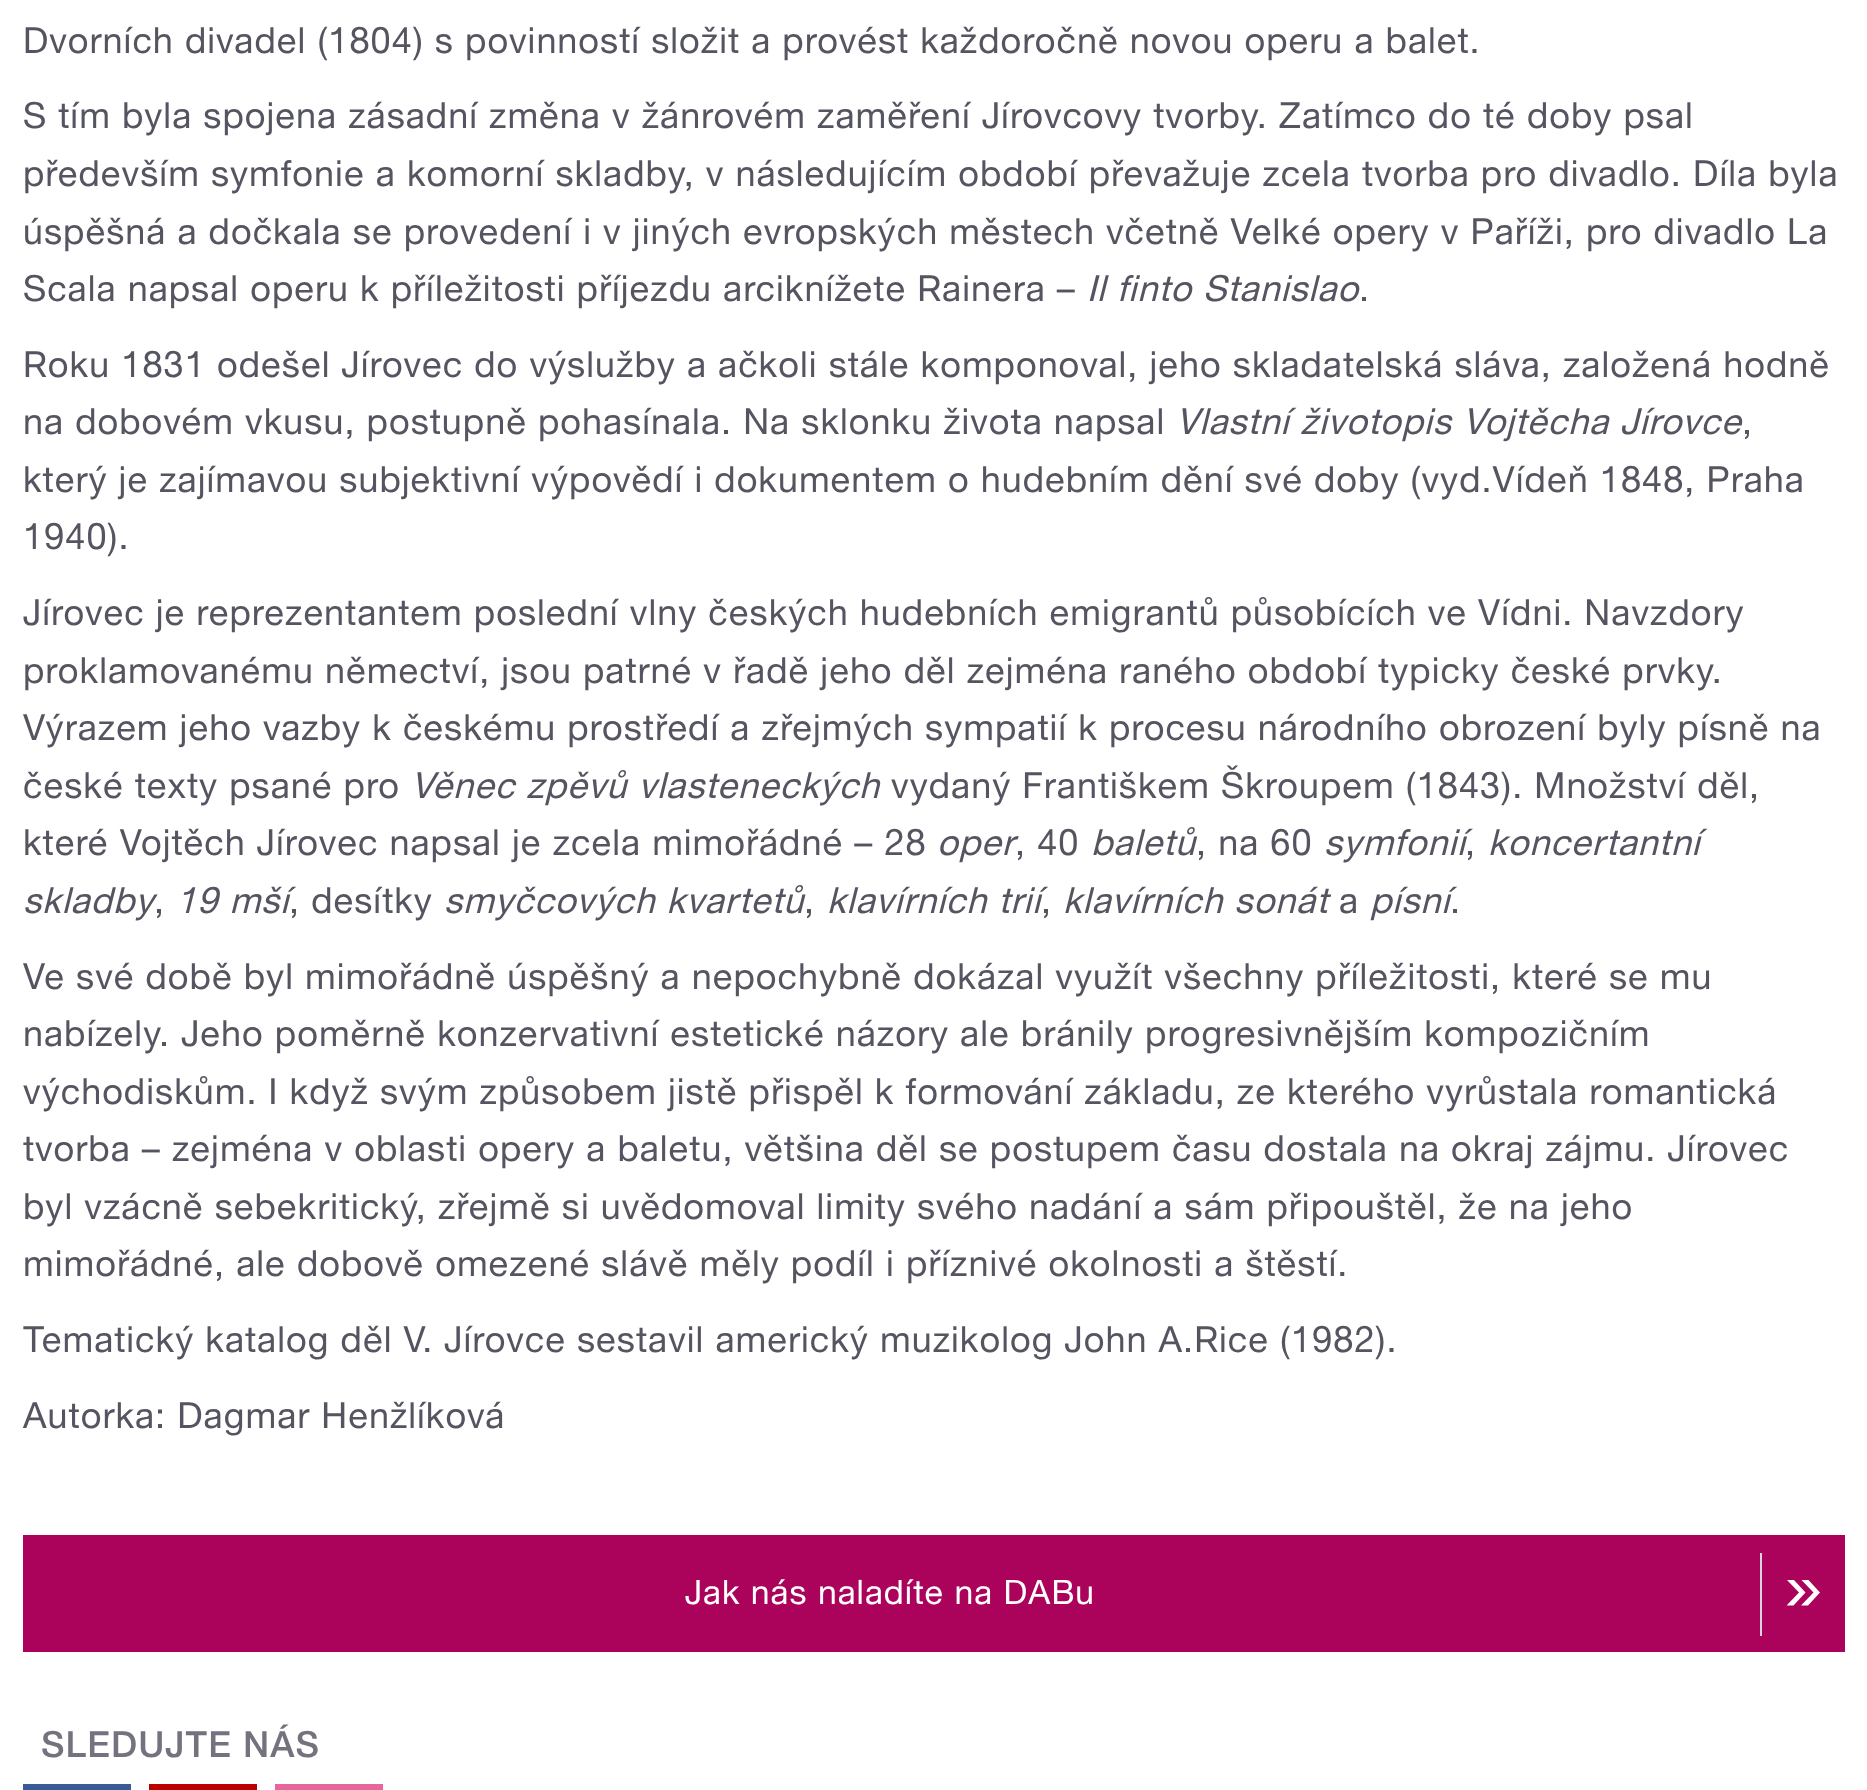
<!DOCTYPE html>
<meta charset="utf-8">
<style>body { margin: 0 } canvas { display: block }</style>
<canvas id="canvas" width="1867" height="1790"></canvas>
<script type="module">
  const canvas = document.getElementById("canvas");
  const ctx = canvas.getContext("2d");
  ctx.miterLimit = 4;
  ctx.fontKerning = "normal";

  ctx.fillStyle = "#ffffff";
  ctx.fillRect(0, 0, 1867, 1790);
  ctx.letterSpacing = "1.08px";
  ctx.font = "36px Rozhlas";
  ctx.fillStyle = "#555561";
  ctx.fillText("Dvorních divadel (1804) s povinností složit a provést každoročně novou operu a balet.", 23, 53);
  ctx.fillText("S tím byla spojena zásadní změna v žánrovém zaměření Jírovcovy tvorby. Zatímco do té doby psal", 23, 128);
  ctx.fillText("především symfonie a komorní skladby, v následujícím období převažuje zcela tvorba pro divadlo. Díla byla", 23, 186);
  ctx.fillText("úspěšná a dočkala se provedení i v jiných evropských městech včetně Velké opery v Paříži, pro divadlo La", 23, 244);
  ctx.fillText("Scala napsal operu k příležitosti příjezdu arciknížete Rainera –", 23, 301);
  ctx.font = "italic 36px Rozhlas";
  ctx.fillText("Il finto Stanislao", 1087, 301);
  ctx.font = "36px Rozhlas";
  ctx.fillText(".", 1359, 301);
  ctx.fillText("Roku 1831 odešel Jírovec do výslužby a ačkoli stále komponoval, jeho skladatelská sláva, založená hodně", 23, 377);
  ctx.fillText("na dobovém vkusu, postupně pohasínala. Na sklonku života napsal", 23, 434);
  ctx.font = "italic 36px Rozhlas";
  ctx.fillText("Vlastní životopis Vojtěcha Jírovce", 1176, 434);
  ctx.font = "36px Rozhlas";
  ctx.fillText(",", 1742, 434);
  ctx.fillText("který je zajímavou subjektivní výpovědí i dokumentem o hudebním dění své doby (vyd.Vídeň 1848, Praha", 23, 492);
  ctx.fillText("1940).", 23, 549);
  ctx.fillText("Jírovec je reprezentantem poslední vlny českých hudebních emigrantů působících ve Vídni. Navzdory", 23, 625);
  ctx.fillText("proklamovanému němectví, jsou patrné v řadě jeho děl zejména raného období typicky české prvky.", 23, 683);
  ctx.fillText("Výrazem jeho vazby k českému prostředí a zřejmých sympatií k procesu národního obrození byly písně na", 23, 740);
  ctx.fillText("české texty psané pro", 23, 798);
  ctx.font = "italic 36px Rozhlas";
  ctx.fillText("Věnec zpěvů vlasteneckých", 411, 798);
  ctx.font = "36px Rozhlas";
  ctx.fillText("vydaný Františkem Škroupem (1843). Množství děl,", 891, 798);
  ctx.fillText("které Vojtěch Jírovec napsal je zcela mimořádné – 28", 23, 855);
  ctx.font = "italic 36px Rozhlas";
  ctx.fillText("oper", 937, 855);
  ctx.font = "36px Rozhlas";
  ctx.fillText(", 40", 1015, 855);
  ctx.font = "italic 36px Rozhlas";
  ctx.fillText("baletů", 1091, 855);
  ctx.font = "36px Rozhlas";
  ctx.fillText(", na 60", 1196, 855);
  ctx.font = "italic 36px Rozhlas";
  ctx.fillText("symfonií", 1324, 855);
  ctx.fillText("koncertantní", 1488, 855);
  ctx.font = "36px Rozhlas";
  ctx.fillText(",", 1465, 855);
  ctx.font = "italic 36px Rozhlas";
  ctx.fillText("skladby", 23, 913);
  ctx.font = "36px Rozhlas";
  ctx.fillText(",", 154, 913);
  ctx.font = "italic 36px Rozhlas";
  ctx.fillText("19 mší", 176, 913);
  ctx.font = "36px Rozhlas";
  ctx.fillText(", desítky", 289, 913);
  ctx.font = "italic 36px Rozhlas";
  ctx.fillText("smyčcových kvartetů", 444, 913);
  ctx.font = "36px Rozhlas";
  ctx.fillText(",", 804, 913);
  ctx.font = "italic 36px Rozhlas";
  ctx.fillText("klavírních trií", 827, 913);
  ctx.fillText("klavírních sonát", 1063, 913);
  ctx.font = "36px Rozhlas";
  ctx.fillText("a", 1339, 913);
  ctx.font = "italic 36px Rozhlas";
  ctx.fillText("písní", 1370, 913);
  ctx.font = "36px Rozhlas";
  ctx.fillText(",", 1041, 913);
  ctx.fillText(".", 1450, 913);
  ctx.fillText("Ve své době byl mimořádně úspěšný a nepochybně dokázal využít všechny příležitosti, které se mu", 23, 989);
  ctx.fillText("nabízely. Jeho poměrně konzervativní estetické názory ale bránily progresivnějším kompozičním", 23, 1046);
  ctx.fillText("východiskům. I když svým způsobem jistě přispěl k formování základu, ze kterého vyrůstala romantická", 23, 1104);
  ctx.fillText("tvorba – zejména v oblasti opery a baletu, většina děl se postupem času dostala na okraj zájmu. Jírovec", 23, 1161);
  ctx.fillText("byl vzácně sebekritický, zřejmě si uvědomoval limity svého nadání a sám připouštěl, že na jeho", 23, 1219);
  ctx.fillText("mimořádné, ale dobově omezené slávě měly podíl i příznivé okolnosti a štěstí.", 23, 1276);
  ctx.fillText("Tematický katalog děl V. Jírovce sestavil americký muzikolog John A.Rice (1982).", 23, 1352);
  ctx.fillText("Autorka: Dagmar Henžlíková", 23, 1428);
  ctx.fillStyle = "#ab035c";
  ctx.fillRect(23, 1535, 1822, 117);
  ctx.fillStyle = "#d6d6de";
  ctx.fillRect(1760, 1553, 2, 83);
  ctx.font = "33.75px Rozhlas";
  ctx.fillStyle = "#ffffff";
  ctx.fillText("Jak nás naladíte na DABu", 685, 1604);
  ctx.save();
  ctx.beginPath();
  ctx.rect(1787, 1580, 33, 27);
  ctx.clip();
  ctx.beginPath();
  ctx.moveTo(1793.5, 1605.5);
  ctx.lineTo(1786.5, 1605.5);
  ctx.lineTo(1799, 1592.5);
  ctx.lineTo(1786.5, 1579.5);
  ctx.lineTo(1793.5, 1579.5);
  ctx.lineTo(1805.5, 1592.5);
  ctx.closePath();
  ctx.moveTo(1808, 1605.5);
  ctx.lineTo(1801, 1605.5);
  ctx.lineTo(1813.5, 1592.5);
  ctx.lineTo(1801, 1579.5);
  ctx.lineTo(1808, 1579.5);
  ctx.lineTo(1820, 1592.5);
  ctx.closePath();
  ctx.fill();
  ctx.restore();
  ctx.font = "500 36px Rozhlas";
  ctx.fillStyle = "#73737f";
  ctx.fillText("SLEDUJTE NÁS", 41, 1757);
  ctx.fillStyle = "#3a5997";
  ctx.fillRect(23, 1784, 108, 6);
  ctx.fillStyle = "#bb0000";
  ctx.fillRect(149, 1784, 108, 6);
  ctx.fillStyle = "#e5679c";
  ctx.fillRect(275, 1784, 108, 6);
</script>
